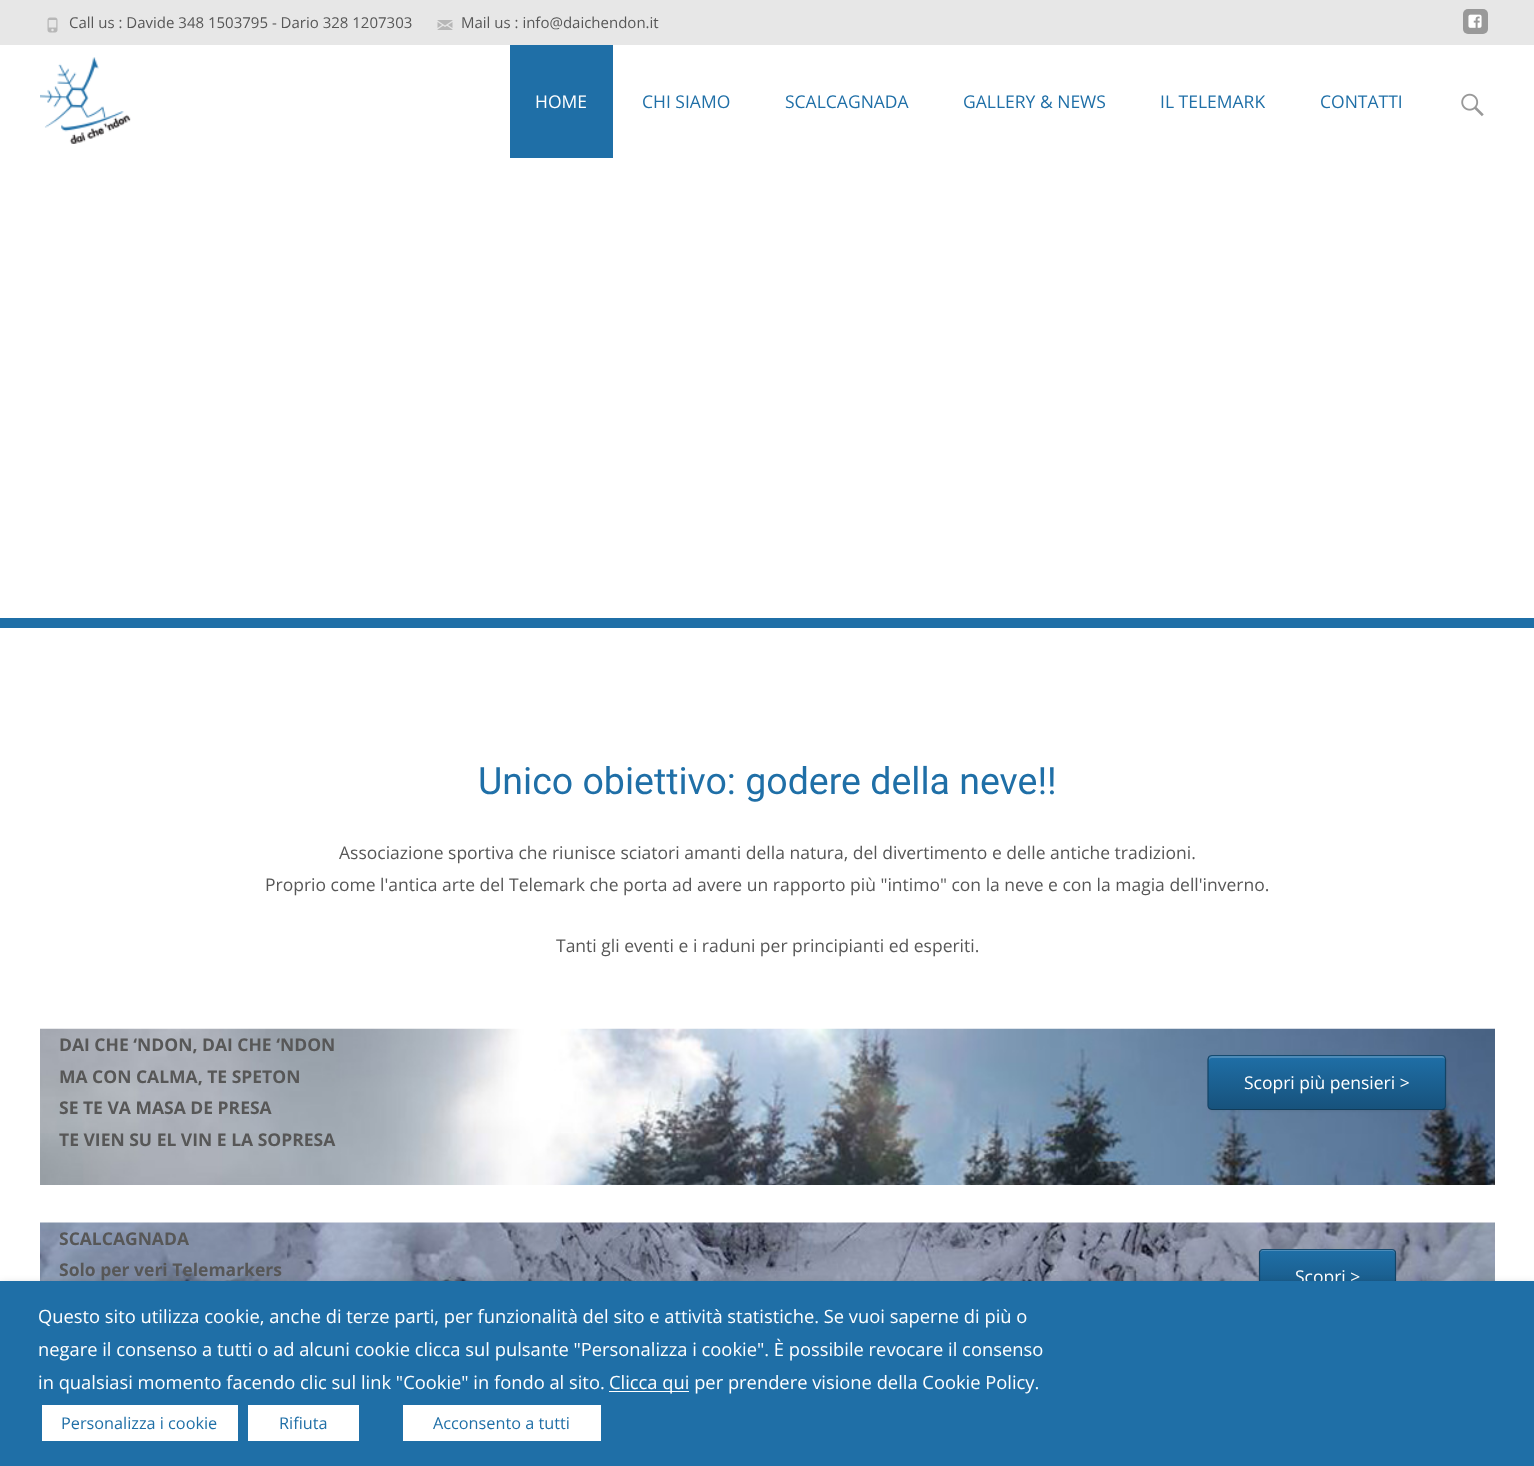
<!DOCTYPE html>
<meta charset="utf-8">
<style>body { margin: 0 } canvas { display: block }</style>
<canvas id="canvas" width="1534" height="1466"></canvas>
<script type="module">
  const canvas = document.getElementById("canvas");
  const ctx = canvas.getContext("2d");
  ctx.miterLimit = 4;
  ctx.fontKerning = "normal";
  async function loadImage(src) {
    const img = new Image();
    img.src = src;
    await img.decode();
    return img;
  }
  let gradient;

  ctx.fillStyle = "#ffffff";
  ctx.fillRect(0, 0, 1534, 1466);
  ctx.fillStyle = "#e7e7e7";
  ctx.fillRect(0, 0, 1534, 45);
  ctx.drawImage(await loadImage("img1.png"), 47, 17, 11, 16);
  ctx.font = "15px Open Sans";
  ctx.fillStyle = "#575757";
  ctx.fillText("Call us : Davide 348 1503795 - Dario 328 1207303", 69, 28);
  ctx.drawImage(await loadImage("img2.png"), 437, 20, 16, 10);
  ctx.fillText("Mail us : info@daichendon.it", 461, 28);
  ctx.fillStyle = "#999999";
  ctx.beginPath();
  ctx.roundRect(1463, 9, 25, 25, 5);
  ctx.fill();
  ctx.drawImage(await loadImage("img3.png"), 1468, 14, 14, 14);
  ctx.drawImage(await loadImage("img4.png"), 40, 57, 91, 87);
  ctx.fillStyle = "#1f6fa7";
  ctx.fillRect(510, 45, 103, 113);
  ctx.font = "17.5px Open Sans";
  ctx.fillStyle = "#ffffff";
  ctx.fillText("HOME", 535, 108);
  ctx.fillStyle = "#1f6fa7";
  ctx.fillText("CHI SIAMO", 642, 108);
  ctx.fillText("SCALCAGNADA", 785, 108);
  ctx.fillText("GALLERY & NEWS", 963, 108);
  ctx.fillText("IL TELEMARK", 1160, 108);
  ctx.fillText("CONTATTI", 1320, 108);
  ctx.drawImage(await loadImage("img5.png"), 1461, 93, 23, 24);
  ctx.fillRect(0, 618, 1534, 10);
  ctx.font = "37.5px Roboto";
  ctx.fillText("Unico obiettivo: godere della neve!!", 478, 794);
  ctx.font = "17.5px Open Sans";
  ctx.fillStyle = "#575757";
  ctx.fillText("Associazione sportiva che riunisce sciatori amanti della natura, del divertimento e delle antiche tradizioni.", 339, 859);
  ctx.fillText("Proprio come l'antica arte del Telemark che porta ad avere un rapporto più \"intimo\" con la neve e con la magia dell'inverno.", 265, 891);
  ctx.fillText("Tanti gli eventi e i raduni per principianti ed esperiti.", 556, 952);
  ctx.drawImage(await loadImage("img6.png"), 40, 1028, 1455, 157);
  ctx.font = "bold 17.5px Open Sans";
  ctx.fillText("DAI CHE ‘NDON, DAI CHE ‘NDON", 59, 1051);
  ctx.fillText("MA CON CALMA, TE SPETON", 59, 1083);
  ctx.fillText("SE TE VA MASA DE PRESA", 59, 1114);
  ctx.fillText("TE VIEN SU EL VIN E LA SOPRESA", 59, 1146);
  ctx.fillStyle = "rgba(0, 0, 0, 0.07)";
  ctx.filter = "blur(1px)";
  ctx.beginPath();
  ctx.roundRect(1208, 1056, 238, 55, 5);
  ctx.fill();
  ctx.filter = "none";
  ctx.save();
  ctx.beginPath();
  ctx.roundRect(1208, 1055, 238, 55, 5);
  ctx.clip();
  gradient = ctx.createLinearGradient(1209, 1109, 1209, 1056);
  gradient.addColorStop(0, "#17527c");
  gradient.addColorStop(1, "#1f6fa7");
  ctx.fillStyle = gradient;
  ctx.fillRect(1208, 1056, 238, 53);
  ctx.restore();
  ctx.fillStyle = "#4c8bb8";
  ctx.beginPath();
  ctx.moveTo(1212, 1058);
  ctx.lineTo(1443, 1058);
  ctx.lineTo(1445, 1059);
  ctx.lineTo(1445, 1061);
  ctx.lineTo(1445, 1059);
  ctx.bezierCurveTo(1445, 1057, 1444, 1056, 1442, 1056);
  ctx.lineTo(1212, 1056);
  ctx.bezierCurveTo(1210, 1056, 1209, 1057, 1209, 1059);
  ctx.lineTo(1209, 1061);
  ctx.bezierCurveTo(1209, 1059, 1210, 1058, 1212, 1058);
  ctx.closePath();
  ctx.fill();
  ctx.beginPath();
  ctx.moveTo(1209, 1056.5);
  ctx.bezierCurveTo(1210, 1056, 1211, 1055.5, 1212, 1055.5);
  ctx.lineTo(1442, 1055.5);
  ctx.bezierCurveTo(1443, 1055.5, 1444, 1056, 1444.5, 1056.5);
  ctx.strokeStyle = "#154a6f";
  ctx.lineWidth = 1.2;
  ctx.stroke();
  ctx.beginPath();
  ctx.moveTo(1444.5, 1056.5);
  ctx.bezierCurveTo(1445, 1057.5, 1445.5, 1058.5, 1445.5, 1059.5);
  ctx.lineTo(1445.5, 1105.5);
  ctx.bezierCurveTo(1445.5, 1106.5, 1445, 1107.5, 1444.5, 1108.5);
  ctx.strokeStyle = "#134466";
  ctx.stroke();
  ctx.beginPath();
  ctx.moveTo(1444.5, 1108.5);
  ctx.bezierCurveTo(1444, 1109, 1443, 1109.5, 1442, 1109.5);
  ctx.lineTo(1212, 1109.5);
  ctx.bezierCurveTo(1211, 1109.5, 1210, 1109, 1209, 1108.5);
  ctx.strokeStyle = "#113c5a";
  ctx.stroke();
  ctx.beginPath();
  ctx.moveTo(1209, 1108.5);
  ctx.bezierCurveTo(1208.5, 1107.5, 1208, 1106.5, 1208, 1105.5);
  ctx.lineTo(1208, 1059.5);
  ctx.bezierCurveTo(1208, 1058.5, 1208.5, 1057.5, 1209, 1056.5);
  ctx.strokeStyle = "#134466";
  ctx.stroke();
  ctx.font = "17.5px Open Sans";
  ctx.fillStyle = "#ffffff";
  ctx.fillText("Scopri più pensieri >", 1244, 1089);
  ctx.drawImage(await loadImage("img7.png"), 40, 1222, 1455, 59);
  ctx.font = "bold 17.5px Open Sans";
  ctx.fillStyle = "#575757";
  ctx.fillText("SCALCAGNADA", 59, 1245);
  ctx.fillText("Solo per veri Telemarkers", 59, 1276);
  ctx.save();
  ctx.beginPath();
  ctx.roundRect(1259, 1249, 137, 55, 5);
  ctx.clip();
  gradient = ctx.createLinearGradient(1260, 1303, 1260, 1250);
  gradient.addColorStop(0, "#17527c");
  gradient.addColorStop(1, "#1f6fa7");
  ctx.fillStyle = gradient;
  ctx.fillRect(1259, 1250, 137, 31);
  ctx.restore();
  ctx.fillStyle = "#4c8cb9";
  ctx.beginPath();
  ctx.moveTo(1263, 1251);
  ctx.lineTo(1392, 1251);
  ctx.bezierCurveTo(1394, 1251, 1395, 1253, 1395, 1254);
  ctx.bezierCurveTo(1395, 1252, 1395, 1250, 1393, 1250);
  ctx.lineTo(1262, 1250);
  ctx.bezierCurveTo(1260, 1250, 1260, 1252, 1260, 1254);
  ctx.bezierCurveTo(1260, 1253, 1261, 1251, 1263, 1251);
  ctx.closePath();
  ctx.fill();
  ctx.beginPath();
  ctx.moveTo(1260.5, 1250.5);
  ctx.bezierCurveTo(1261, 1250, 1262, 1249.5, 1263, 1249.5);
  ctx.lineTo(1392, 1249.5);
  ctx.bezierCurveTo(1393, 1249.5, 1394, 1250, 1394.5, 1250.5);
  ctx.strokeStyle = "#154a6f";
  ctx.stroke();
  ctx.beginPath();
  ctx.moveTo(1394.5, 1250.5);
  ctx.bezierCurveTo(1395, 1251, 1395.5, 1252, 1395.5, 1253);
  ctx.lineTo(1395.5, 1299.5);
  ctx.bezierCurveTo(1395.5, 1300.5, 1395, 1301.5, 1394.5, 1302);
  ctx.strokeStyle = "#134466";
  ctx.stroke();
  ctx.beginPath();
  ctx.moveTo(1260.5, 1302);
  ctx.bezierCurveTo(1260, 1301.5, 1259.5, 1300.5, 1259.5, 1299.5);
  ctx.lineTo(1259.5, 1253);
  ctx.bezierCurveTo(1259.5, 1252, 1260, 1251, 1260.5, 1250.5);
  ctx.stroke();
  ctx.font = "17.5px Open Sans";
  ctx.fillStyle = "#ffffff";
  ctx.fillText("Scopri >", 1295, 1283);
  ctx.fillStyle = "rgba(0, 0, 0, 0.5)";
  ctx.filter = "blur(6px)";
  ctx.beginPath();
  ctx.rect(0, 1288, 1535, 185);
  ctx.fill();
  ctx.filter = "none";
  ctx.fillStyle = "#1f6fa7";
  ctx.fillRect(0, 1281, 1534, 185);
  ctx.font = "18.33px Open Sans";
  ctx.fillStyle = "#ffffff";
  ctx.fillText("Questo sito utilizza cookie, anche di terze parti, per funzionalità del sito e attività statistiche. Se vuoi saperne di più o", 38, 1323);
  ctx.fillText("negare il consenso a tutti o ad alcuni cookie clicca sul pulsante \"Personalizza i cookie\". È possibile revocare il consenso", 38, 1356);
  ctx.fillText("in qualsiasi momento facendo clic sul link \"Cookie\" in fondo al sito.", 38, 1389);
  ctx.fillRect(609, 1391, 80, 1);
  ctx.fillText("Clicca qui per prendere visione della Cookie Policy.", 609, 1389);
  ctx.fillRect(42, 1405, 196, 36);
  ctx.font = "16.25px Open Sans";
  ctx.fillStyle = "#1f6fa7";
  ctx.fillText("Personalizza i cookie", 61, 1429);
  ctx.fillStyle = "#ffffff";
  ctx.fillRect(248, 1405, 111, 36);
  ctx.fillStyle = "#1f6fa7";
  ctx.fillText("Rifiuta", 279, 1429);
  ctx.fillStyle = "#ffffff";
  ctx.fillRect(403, 1405, 198, 36);
  ctx.fillStyle = "#1f6fa7";
  ctx.fillText("Acconsento a tutti", 433, 1429);
</script>
